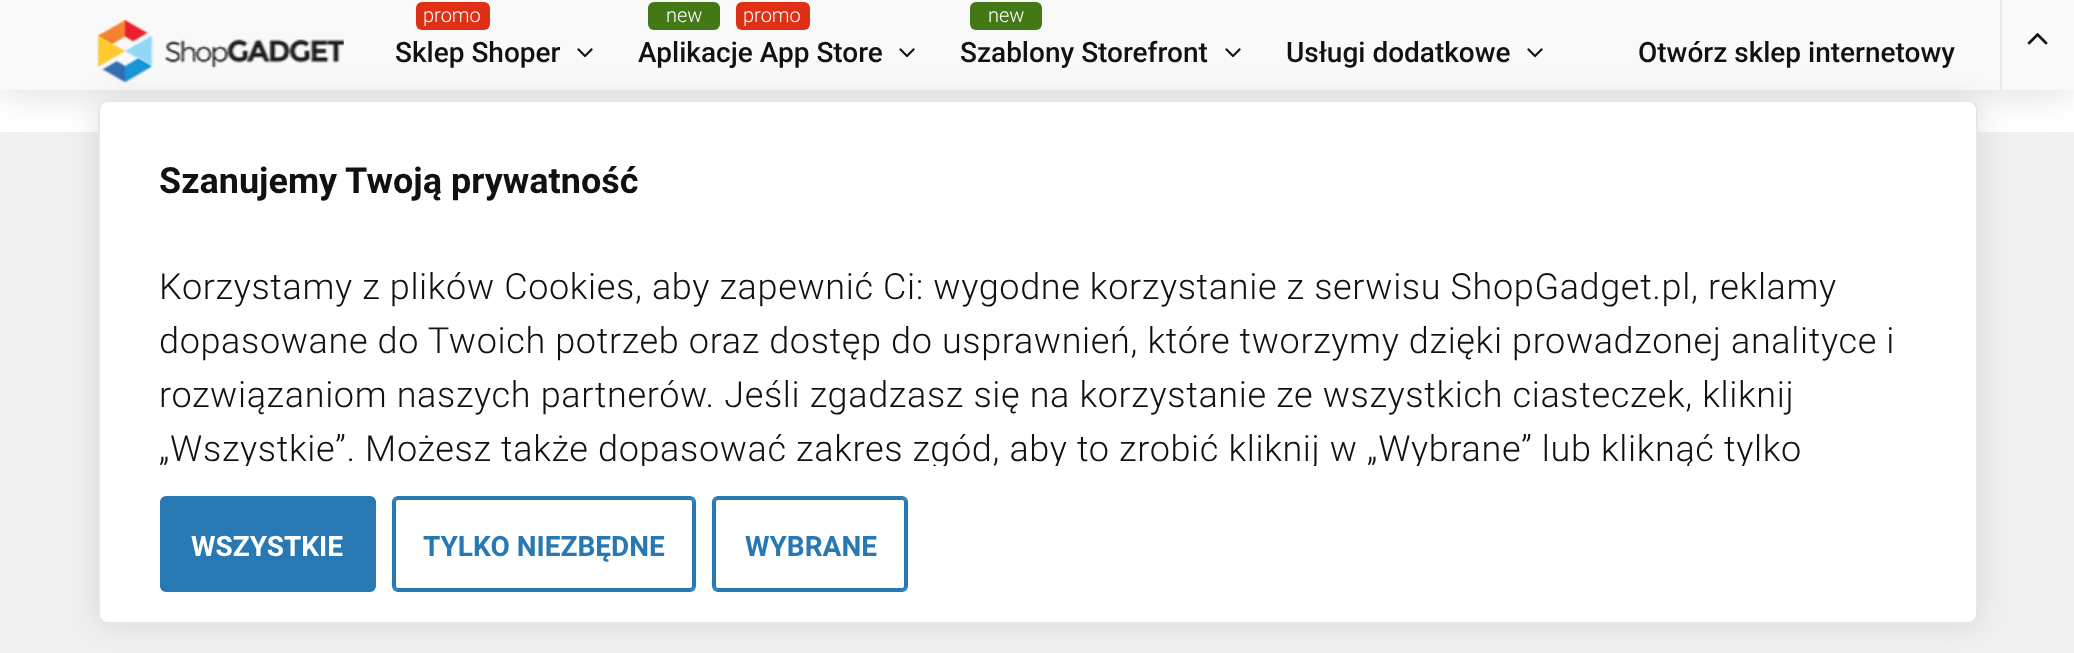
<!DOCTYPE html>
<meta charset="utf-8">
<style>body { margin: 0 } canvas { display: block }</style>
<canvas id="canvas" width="2074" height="653"></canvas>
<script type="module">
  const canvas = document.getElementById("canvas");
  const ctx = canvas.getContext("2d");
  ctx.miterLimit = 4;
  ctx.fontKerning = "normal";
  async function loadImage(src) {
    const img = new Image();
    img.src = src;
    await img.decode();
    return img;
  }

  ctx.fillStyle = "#ffffff";
  ctx.fillRect(0, 0, 2074, 653);
  ctx.fillStyle = "#f0f0f0";
  ctx.fillRect(0, 132, 2074, 521);
  ctx.fillStyle = "rgba(0, 0, 0, 0.15)";
  ctx.filter = "blur(20px)";
  ctx.beginPath();
  ctx.rect(0, -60, 2074, 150);
  ctx.fill();
  ctx.filter = "none";
  ctx.fillStyle = "#f9f9f9";
  ctx.fillRect(0, 0, 2074, 90);
  ctx.drawImage(await loadImage("img1.png"), 97, 20, 247, 64);
  ctx.fillStyle = "#df3016";
  ctx.beginPath();
  ctx.roundRect(416, 2, 74, 28, 6);
  ctx.fill();
  ctx.font = "300 20px Roboto";
  ctx.fillStyle = "#ffffff";
  ctx.fillText("promo", 423, 22);
  ctx.font = "500 28px Roboto";
  ctx.fillStyle = "#111111";
  ctx.fillText("Sklep Shoper", 395, 62);
  ctx.drawImage(await loadImage("img2.png"), 577, 48, 16, 10);
  ctx.fillStyle = "#447816";
  ctx.beginPath();
  ctx.roundRect(648, 2, 72, 28, 6);
  ctx.fill();
  ctx.font = "300 20px Roboto";
  ctx.fillStyle = "#ffffff";
  ctx.fillText("new", 666, 22);
  ctx.fillStyle = "#df3016";
  ctx.beginPath();
  ctx.roundRect(736, 2, 74, 28, 6);
  ctx.fill();
  ctx.fillStyle = "#ffffff";
  ctx.fillText("promo", 743, 22);
  ctx.font = "500 28px Roboto";
  ctx.fillStyle = "#111111";
  ctx.fillText("Aplikacje App Store", 638, 62);
  ctx.drawImage(await loadImage("img2.png"), 899, 48, 16, 10);
  ctx.fillStyle = "#447816";
  ctx.beginPath();
  ctx.roundRect(970, 2, 72, 28, 6);
  ctx.fill();
  ctx.font = "300 20px Roboto";
  ctx.fillStyle = "#ffffff";
  ctx.fillText("new", 988, 22);
  ctx.font = "500 28px Roboto";
  ctx.fillStyle = "#111111";
  ctx.fillText("Szablony Storefront", 960, 62);
  ctx.drawImage(await loadImage("img2.png"), 1225, 48, 16, 10);
  ctx.fillText("Usługi dodatkowe", 1286, 62);
  ctx.drawImage(await loadImage("img2.png"), 1527, 48, 16, 10);
  ctx.fillText("Otwórz sklep internetowy", 1638, 62);
  ctx.fillStyle = "#e9e9e9";
  ctx.fillRect(2000, 0, 2, 90);
  ctx.drawImage(await loadImage("img3.png"), 2027, 33, 21, 12);
  ctx.fillStyle = "rgba(0, 0, 0, 0.1)";
  ctx.filter = "blur(15px)";
  ctx.beginPath();
  ctx.roundRect(98, 100, 1880, 524, 10);
  ctx.fill();
  ctx.filter = "none";
  ctx.fillStyle = "#ffffff";
  ctx.beginPath();
  ctx.roundRect(99, 101, 1878, 522, 9);
  ctx.fill();
  ctx.strokeStyle = "#e7e7e7";
  ctx.lineWidth = 2;
  ctx.stroke();
  ctx.font = "bold 36px Roboto";
  ctx.fillStyle = "#111111";
  ctx.fillText("Szanujemy Twoją prywatność", 159, 193);
  ctx.letterSpacing = "0.64px";
  ctx.font = "300 36px Roboto";
  ctx.fillText("Korzystamy z plików Cookies, aby zapewnić Ci: wygodne korzystanie z serwisu ShopGadget.pl, reklamy", 159, 299);
  ctx.fillText("dopasowane do Twoich potrzeb oraz dostęp do usprawnień, które tworzymy dzięki prowadzonej analityce i", 159, 353);
  ctx.fillText("rozwiązaniom naszych partnerów. Jeśli zgadzasz się na korzystanie ze wszystkich ciasteczek, kliknij", 159, 407);
  ctx.fillText("„Wszystkie”. Możesz także dopasować zakres zgód, aby to zrobić kliknij w „Wybrane” lub kliknąć tylko", 159, 461);
  ctx.fillStyle = "#ffffff";
  ctx.fillRect(241, 466, 1504, 3);
  ctx.fillStyle = "#2878b3";
  ctx.beginPath();
  ctx.roundRect(161, 497, 214, 94, 5);
  ctx.fill();
  ctx.strokeStyle = "#2878b3";
  ctx.stroke();
  ctx.letterSpacing = "0px";
  ctx.font = "bold 28px Roboto";
  ctx.fillStyle = "#ffffff";
  ctx.fillText("WSZYSTKIE", 191, 556);
  ctx.beginPath();
  ctx.roundRect(395, 499, 298, 90, 3);
  ctx.stroke();
  ctx.beginPath();
  ctx.roundRect(393, 497, 302, 94, 5);
  ctx.stroke();
  ctx.fillStyle = "#2878b3";
  ctx.fillText("TYLKO NIEZBĘDNE", 423, 556);
  ctx.beginPath();
  ctx.roundRect(715, 499, 190, 90, 3);
  ctx.stroke();
  ctx.beginPath();
  ctx.roundRect(713, 497, 194, 94, 5);
  ctx.stroke();
  ctx.fillText("WYBRANE", 745, 556);
</script>
